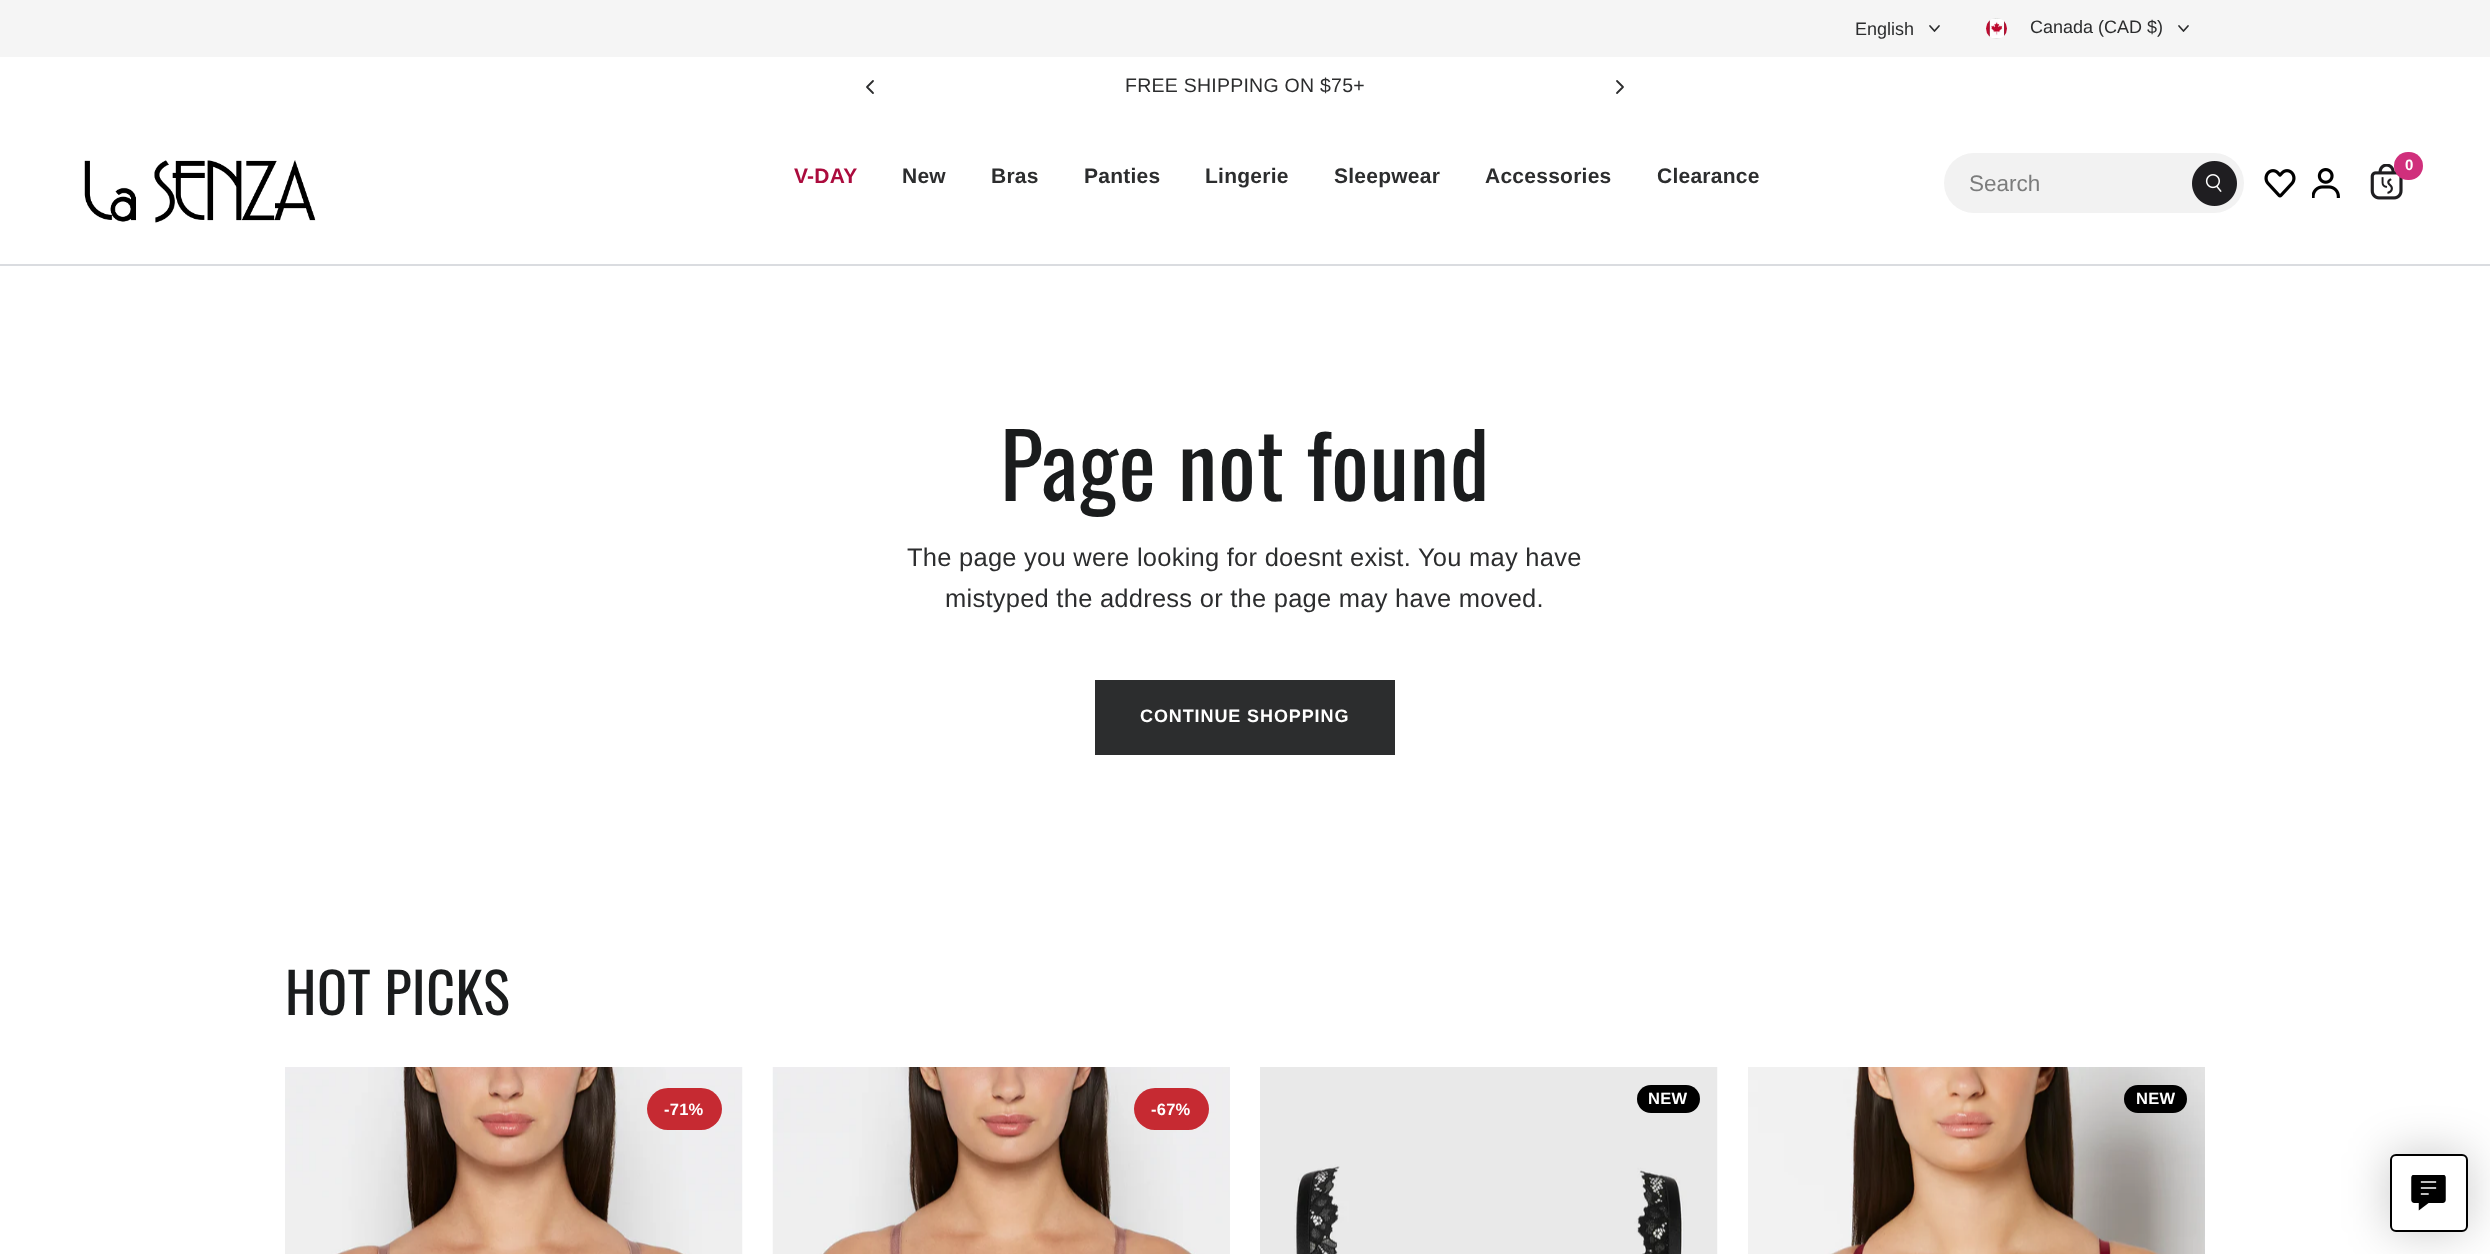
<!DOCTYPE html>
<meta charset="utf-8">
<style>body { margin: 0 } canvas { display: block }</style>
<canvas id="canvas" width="2490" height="1254"></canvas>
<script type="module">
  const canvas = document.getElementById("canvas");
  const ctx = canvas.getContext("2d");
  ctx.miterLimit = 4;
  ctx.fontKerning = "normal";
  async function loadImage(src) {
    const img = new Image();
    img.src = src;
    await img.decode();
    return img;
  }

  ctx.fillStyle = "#ffffff";
  ctx.fillRect(0, 0, 2490, 1254);
  ctx.fillStyle = "#f5f5f5";
  ctx.fillRect(0, 0, 2490, 57);
  ctx.font = "18px Liberation Sans";
  ctx.fillStyle = "#2c2d2e";
  ctx.fillText("English", 1855, 35);
  ctx.beginPath();
  ctx.moveTo(1939, 26);
  ctx.lineTo(1934.5, 31);
  ctx.lineTo(1930, 26);
  ctx.strokeStyle = "#2c2d2e";
  ctx.lineWidth = 1.7;
  ctx.lineCap = "round";
  ctx.lineJoin = "round";
  ctx.stroke();
  ctx.drawImage(await loadImage("img1.png"), 1986, 18, 21, 21);
  ctx.fillText("Canada (CAD $)", 2030, 33);
  ctx.beginPath();
  ctx.moveTo(2188, 26);
  ctx.lineTo(2183.5, 31);
  ctx.lineTo(2179, 26);
  ctx.stroke();
  ctx.beginPath();
  ctx.moveTo(873, 81);
  ctx.lineTo(867, 87);
  ctx.lineTo(873, 93);
  ctx.lineWidth = 1.8;
  ctx.stroke();
  ctx.letterSpacing = "0.25px";
  ctx.font = "19.5px Liberation Sans";
  ctx.fillText("FREE SHIPPING ON $75+", 1125, 92);
  ctx.beginPath();
  ctx.moveTo(1617, 81);
  ctx.lineTo(1623, 87);
  ctx.lineTo(1617, 93);
  ctx.stroke();
  ctx.drawImage(await loadImage("img2.png"), 84, 160, 232, 63);
  ctx.font = "bold 21px Liberation Sans";
  ctx.fillStyle = "#ab0b3d";
  ctx.fillText("V-DAY", 794, 183);
  ctx.fillStyle = "#2c2d2e";
  ctx.fillText("New", 902, 183);
  ctx.fillText("Bras", 991, 183);
  ctx.fillText("Panties", 1084, 183);
  ctx.fillText("Lingerie", 1205, 183);
  ctx.fillText("Sleepwear", 1334, 183);
  ctx.fillText("Accessories", 1485, 183);
  ctx.fillText("Clearance", 1657, 183);
  ctx.drawImage(await loadImage("img3.png"), 2370, 164, 33, 36);
  ctx.fillStyle = "#d02f7c";
  ctx.beginPath();
  ctx.roundRect(2394, 152, 29, 28, 14);
  ctx.fill();
  ctx.font = "bold 15px Liberation Sans";
  ctx.fillStyle = "#ffffff";
  ctx.fillText("0", 2405, 170);
  ctx.fillStyle = "#f2f2f2";
  ctx.beginPath();
  ctx.roundRect(1944, 153, 300, 60, 30);
  ctx.fill();
  ctx.drawImage(await loadImage("img4.png"), 2192, 161, 45, 45);
  ctx.letterSpacing = "0px";
  ctx.font = "22.5px Liberation Sans";
  ctx.fillStyle = "#7b7c7c";
  ctx.fillText("Search", 1969, 191);
  ctx.drawImage(await loadImage("img5.png"), 2264, 169, 32, 29);
  ctx.drawImage(await loadImage("img6.png"), 2312, 168, 28, 30);
  ctx.fillStyle = "#dadce0";
  ctx.fillRect(0, 264, 2490, 2);
  ctx.letterSpacing = "0.9px";
  ctx.font = "89px Oswald";
  ctx.fillStyle = "#1a1c1d";
  ctx.fillText("Page not found", 1000, 501);
  ctx.letterSpacing = "0.25px";
  ctx.font = "25.5px Liberation Sans";
  ctx.fillStyle = "#2c2d2e";
  ctx.fillText("The page you were looking for doesnt exist. You may have", 907, 566);
  ctx.fillText("mistyped the address or the page may have moved.", 945, 607);
  ctx.fillRect(1095, 680, 300, 75);
  ctx.letterSpacing = "0.9px";
  ctx.font = "bold 18px Liberation Sans";
  ctx.fillStyle = "#ffffff";
  ctx.fillText("CONTINUE SHOPPING", 1140, 722);
  ctx.letterSpacing = "0.5px";
  ctx.font = "56px Oswald";
  ctx.fillStyle = "#1a1c1d";
  ctx.fillText("HOT PICKS", 285, 1015);
  ctx.drawImage(await loadImage("img7.png"), 1260, 1067, 458, 187);
  ctx.fillStyle = "#000000";
  ctx.beginPath();
  ctx.roundRect(1637, 1085, 63, 28, 14);
  ctx.fill();
  ctx.letterSpacing = "0.25px";
  ctx.font = "bold 16.5px Liberation Sans";
  ctx.fillStyle = "#ffffff";
  ctx.fillText("NEW", 1648, 1104);
  ctx.drawImage(await loadImage("img8.png"), 1748, 1067, 457, 187);
  ctx.fillStyle = "#000000";
  ctx.beginPath();
  ctx.roundRect(2124, 1085, 63, 28, 14);
  ctx.fill();
  ctx.fillStyle = "#ffffff";
  ctx.fillText("NEW", 2136, 1104);
  ctx.drawImage(await loadImage("img9.png"), 285, 1067, 458, 187);
  ctx.fillStyle = "#c62a32";
  ctx.beginPath();
  ctx.roundRect(647, 1088, 75, 42, 21);
  ctx.fill();
  ctx.fillStyle = "#ffffff";
  ctx.fillText("-71%", 664, 1115);
  ctx.drawImage(await loadImage("img10.png"), 772, 1067, 458, 187);
  ctx.fillStyle = "#c62a32";
  ctx.beginPath();
  ctx.roundRect(1134, 1088, 75, 42, 21);
  ctx.fill();
  ctx.fillStyle = "#ffffff";
  ctx.fillText("-67%", 1151, 1115);
  ctx.fillStyle = "rgba(0, 0, 0, 0.2)";
  ctx.filter = "blur(22.5px)";
  ctx.beginPath();
  ctx.roundRect(2388, 1152, 81, 81, 8);
  ctx.fill();
  ctx.filter = "none";
  ctx.fillStyle = "#ffffff";
  ctx.beginPath();
  ctx.roundRect(2391, 1155, 76, 76, 5);
  ctx.fill();
  ctx.strokeStyle = "#000000";
  ctx.lineWidth = 2;
  ctx.lineJoin = "miter";
  ctx.stroke();
  ctx.drawImage(await loadImage("img11.png"), 2411, 1175, 35, 36);
</script>
